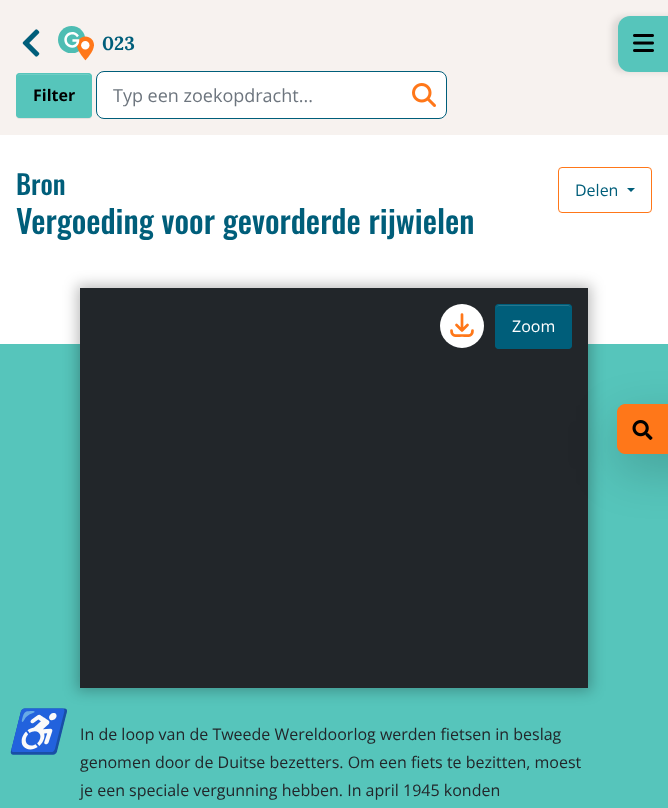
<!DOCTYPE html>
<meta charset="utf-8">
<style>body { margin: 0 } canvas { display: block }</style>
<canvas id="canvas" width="668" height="808"></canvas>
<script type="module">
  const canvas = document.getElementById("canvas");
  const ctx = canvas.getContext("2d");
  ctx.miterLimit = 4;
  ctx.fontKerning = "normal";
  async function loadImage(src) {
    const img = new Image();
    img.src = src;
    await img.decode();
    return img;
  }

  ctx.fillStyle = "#ffffff";
  ctx.fillRect(0, 0, 668, 808);
  ctx.fillStyle = "#f7f2ef";
  ctx.fillRect(0, 0, 668, 135);
  ctx.drawImage(await loadImage("img1.png"), 22, 29, 18, 28);
  ctx.drawImage(await loadImage("img2.png"), 58, 26, 36, 35);
  ctx.font = "bold 19px Lora";
  ctx.fillStyle = "#005e7a";
  ctx.fillText("023", 102, 50);
  ctx.fillStyle = "rgba(0, 0, 0, 0.07)";
  ctx.filter = "blur(0.5px)";
  ctx.beginPath();
  ctx.roundRect(16, 74, 76, 45, 4);
  ctx.fill();
  ctx.filter = "none";
  ctx.fillStyle = "#56c5bb";
  ctx.beginPath();
  ctx.roundRect(16, 73, 76, 45, 4);
  ctx.fill();
  ctx.fillStyle = "#6fcec5";
  ctx.beginPath();
  ctx.moveTo(20, 75);
  ctx.lineTo(88, 75);
  ctx.bezierCurveTo(90, 75, 91, 76, 91, 78);
  ctx.bezierCurveTo(91, 71, 81, 74, 77, 74);
  ctx.lineTo(31, 74);
  ctx.bezierCurveTo(27, 74, 17, 71, 17, 78);
  ctx.bezierCurveTo(17, 76, 18, 75, 20, 75);
  ctx.closePath();
  ctx.fill();
  ctx.beginPath();
  ctx.roundRect(16.5, 73.5, 75, 44, 3.5);
  ctx.strokeStyle = "#56c5bb";
  ctx.stroke();
  ctx.font = "bold 16px Open Sans";
  ctx.fillStyle = "#000000";
  ctx.fillText("Filter", 33, 101);
  ctx.fillStyle = "#ffffff";
  ctx.beginPath();
  ctx.roundRect(96.5, 71.5, 350, 47, 7.5);
  ctx.fill();
  ctx.strokeStyle = "#005e7a";
  ctx.stroke();
  ctx.font = "18px Open Sans";
  ctx.fillStyle = "#6d757e";
  ctx.fillText("Typ een zoekopdracht...", 113, 102);
  ctx.drawImage(await loadImage("img3.png"), 412, 83, 24, 24);
  ctx.fillStyle = "rgba(0, 0, 0, 0.1)";
  ctx.filter = "blur(3px)";
  ctx.beginPath();
  ctx.roundRect(612, 16, 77, 56, 12);
  ctx.fill();
  ctx.filter = "none";
  ctx.fillStyle = "#56c5bb";
  ctx.beginPath();
  ctx.roundRect(618, 16, 50, 56, [12, 0, 0, 12]);
  ctx.fill();
  ctx.drawImage(await loadImage("img4.png"), 633, 34, 21, 18);
  ctx.font = "500 27px Oswald";
  ctx.fillStyle = "#005e7a";
  ctx.fillText("Bron", 16, 195);
  ctx.font = "500 32px Oswald";
  ctx.fillText("Vergoeding voor gevorderde rijwielen", 16, 234);
  ctx.beginPath();
  ctx.roundRect(558.5, 167.5, 93, 45, 3.5);
  ctx.strokeStyle = "#ff7719";
  ctx.stroke();
  ctx.font = "16px Open Sans";
  ctx.fillText("Delen", 575, 196);
  ctx.beginPath();
  ctx.moveTo(627, 188);
  ctx.lineTo(635, 188);
  ctx.lineTo(631, 192);
  ctx.closePath();
  ctx.fill();
  ctx.fillStyle = "#56c5bb";
  ctx.fillRect(0, 344, 668, 464);
  ctx.fillStyle = "rgba(0, 0, 0, 0.26)";
  ctx.filter = "blur(7px)";
  ctx.beginPath();
  ctx.rect(77, 285, 514, 406);
  ctx.fill();
  ctx.filter = "none";
  ctx.fillStyle = "#22262a";
  ctx.fillRect(80, 288, 508, 400);
  ctx.fillStyle = "#ffffff";
  ctx.beginPath();
  ctx.arc(462, 326, 22, 0, Math.PI * 2);
  ctx.fill();
  ctx.beginPath();
  ctx.moveTo(451.5, 330.5);
  ctx.bezierCurveTo(451.5, 337, 456.5, 335.5, 462, 335.5);
  ctx.bezierCurveTo(467.5, 335.5, 472.5, 337, 472.5, 330.5);
  ctx.moveTo(467.5, 325);
  ctx.lineTo(462, 330.5);
  ctx.moveTo(462, 330.5);
  ctx.lineTo(456.5, 325);
  ctx.moveTo(462, 330.5);
  ctx.lineTo(462, 314.5);
  ctx.lineWidth = 2.7;
  ctx.lineCap = "round";
  ctx.lineJoin = "round";
  ctx.stroke();
  ctx.fillStyle = "#005e7a";
  ctx.beginPath();
  ctx.roundRect(495, 304, 77, 45, 4);
  ctx.fill();
  ctx.fillStyle = "#26768e";
  ctx.beginPath();
  ctx.moveTo(499, 306);
  ctx.lineTo(568, 306);
  ctx.bezierCurveTo(570, 306, 571, 307, 571, 309);
  ctx.bezierCurveTo(571, 302, 561, 305, 556, 305);
  ctx.lineTo(510, 305);
  ctx.bezierCurveTo(506, 305, 496, 302, 496, 309);
  ctx.bezierCurveTo(496, 307, 497, 306, 499, 306);
  ctx.closePath();
  ctx.fill();
  ctx.beginPath();
  ctx.roundRect(495.5, 304.5, 76, 44, 3.5);
  ctx.strokeStyle = "#005e7a";
  ctx.lineWidth = 1;
  ctx.lineJoin = "miter";
  ctx.stroke();
  ctx.fillStyle = "#ffffff";
  ctx.fillText("Zoom", 512, 332);
  ctx.fillStyle = "#22262a";
  ctx.fillText("In de loop van de Tweede Wereldoorlog werden fietsen in beslag", 80, 740);
  ctx.fillText("genomen door de Duitse bezetters. Om een fiets te bezitten, moest", 80, 768);
  ctx.fillText("je een speciale vergunning hebben. In april 1945 konden", 80, 796);
  ctx.fillStyle = "rgba(0, 0, 0, 0.18)";
  ctx.filter = "blur(24px)";
  ctx.beginPath();
  ctx.roundRect(617, 420, 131, 50, 8);
  ctx.fill();
  ctx.filter = "none";
  ctx.fillStyle = "#ff7719";
  ctx.beginPath();
  ctx.moveTo(625, 404.5);
  ctx.lineTo(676.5, 404.5);
  ctx.lineTo(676.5, 453.5);
  ctx.lineTo(625, 453.5);
  ctx.bezierCurveTo(621, 453.5, 617.5, 450, 617.5, 446);
  ctx.lineTo(617.5, 412);
  ctx.bezierCurveTo(617.5, 408, 621, 404.5, 625, 404.5);
  ctx.closePath();
  ctx.fill();
  ctx.strokeStyle = "#ff7719";
  ctx.stroke();
  ctx.drawImage(await loadImage("img5.png"), 632, 420, 21, 20);
  ctx.letterSpacing = "-3px";
  ctx.font = "italic 42px Noto Color Emoji";
  ctx.fillStyle = "#ffffff";
  ctx.fillText("♿", 9, 746);
</script>
